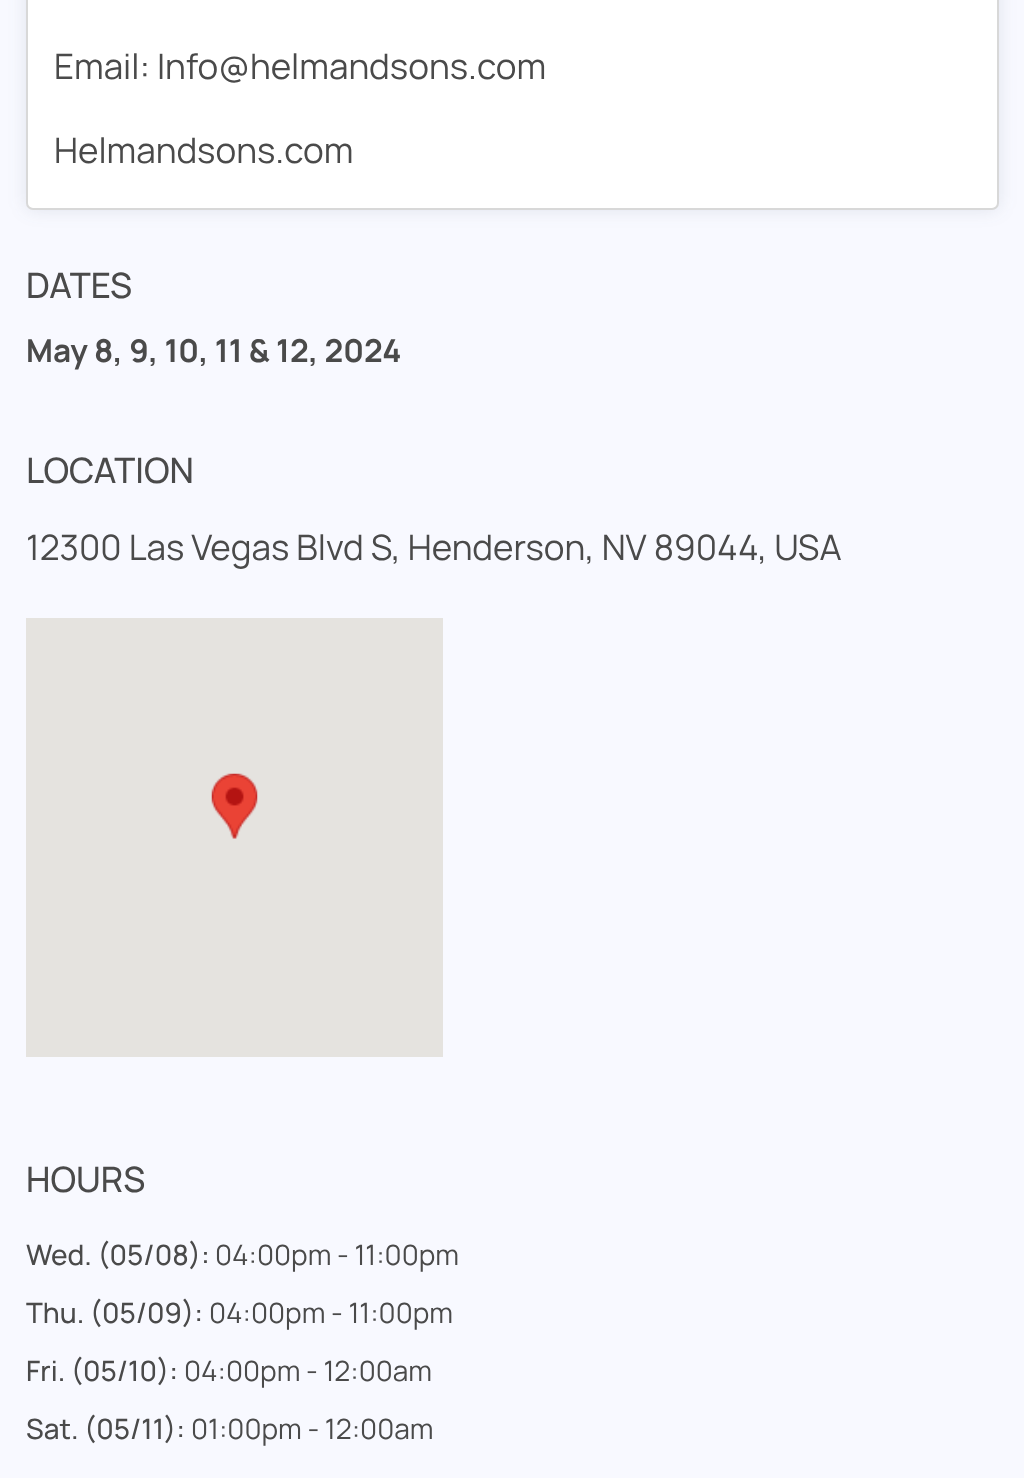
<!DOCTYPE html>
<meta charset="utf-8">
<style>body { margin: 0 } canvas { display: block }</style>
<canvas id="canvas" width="1024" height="1478"></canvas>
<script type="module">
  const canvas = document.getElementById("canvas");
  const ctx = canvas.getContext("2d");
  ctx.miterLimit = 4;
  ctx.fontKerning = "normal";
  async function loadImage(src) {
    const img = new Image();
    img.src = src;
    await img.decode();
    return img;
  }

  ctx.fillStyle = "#f8f9ff";
  ctx.fillRect(0, 0, 1024, 1478);
  ctx.fillStyle = "rgba(55, 70, 95, 0.12)";
  ctx.filter = "blur(9px)";
  ctx.beginPath();
  ctx.roundRect(26, -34, 973, 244, 7);
  ctx.fill();
  ctx.filter = "none";
  ctx.fillStyle = "#ffffff";
  ctx.beginPath();
  ctx.roundRect(27, -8, 971, 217, 6);
  ctx.fill();
  ctx.strokeStyle = "#d8d8d8";
  ctx.lineWidth = 2;
  ctx.stroke();
  ctx.font = "35px Manrope";
  ctx.fillStyle = "#4a4a4a";
  ctx.fillText("Email: Info@helmandsons.com", 54, 79);
  ctx.fillText("Helmandsons.com", 54, 163);
  ctx.font = "500 35px Manrope";
  ctx.fillText("DATES", 26, 298);
  ctx.font = "bold 31.5px Manrope";
  ctx.fillText("May 8, 9, 10, 11 & 12, 2024", 26, 362);
  ctx.font = "500 35px Manrope";
  ctx.fillText("LOCATION", 26, 483);
  ctx.font = "35px Manrope";
  ctx.fillText("12300 Las Vegas Blvd S, Henderson, NV 89044, USA", 26, 560);
  ctx.fillStyle = "#e5e3df";
  ctx.fillRect(26, 618, 417, 439);
  ctx.drawImage(await loadImage("img1.png"), 211, 773, 47, 66);
  ctx.font = "500 35px Manrope";
  ctx.fillStyle = "#4a4a4a";
  ctx.fillText("HOURS", 26, 1192);
  ctx.font = "500 28px Manrope";
  ctx.fillText("Wed. (05/08):", 26, 1265);
  ctx.font = "28px Manrope";
  ctx.fillText("04:00pm - 11:00pm", 215, 1265);
  ctx.font = "500 28px Manrope";
  ctx.fillText("Thu. (05/09):", 26, 1323);
  ctx.font = "28px Manrope";
  ctx.fillText("04:00pm - 11:00pm", 209, 1323);
  ctx.font = "500 28px Manrope";
  ctx.fillText("Fri. (05/10):", 26, 1381);
  ctx.font = "28px Manrope";
  ctx.fillText("04:00pm - 12:00am", 184, 1381);
  ctx.font = "500 28px Manrope";
  ctx.fillText("Sat. (05/11):", 26, 1439);
  ctx.font = "28px Manrope";
  ctx.fillText("01:00pm - 12:00am", 191, 1439);
</script>
